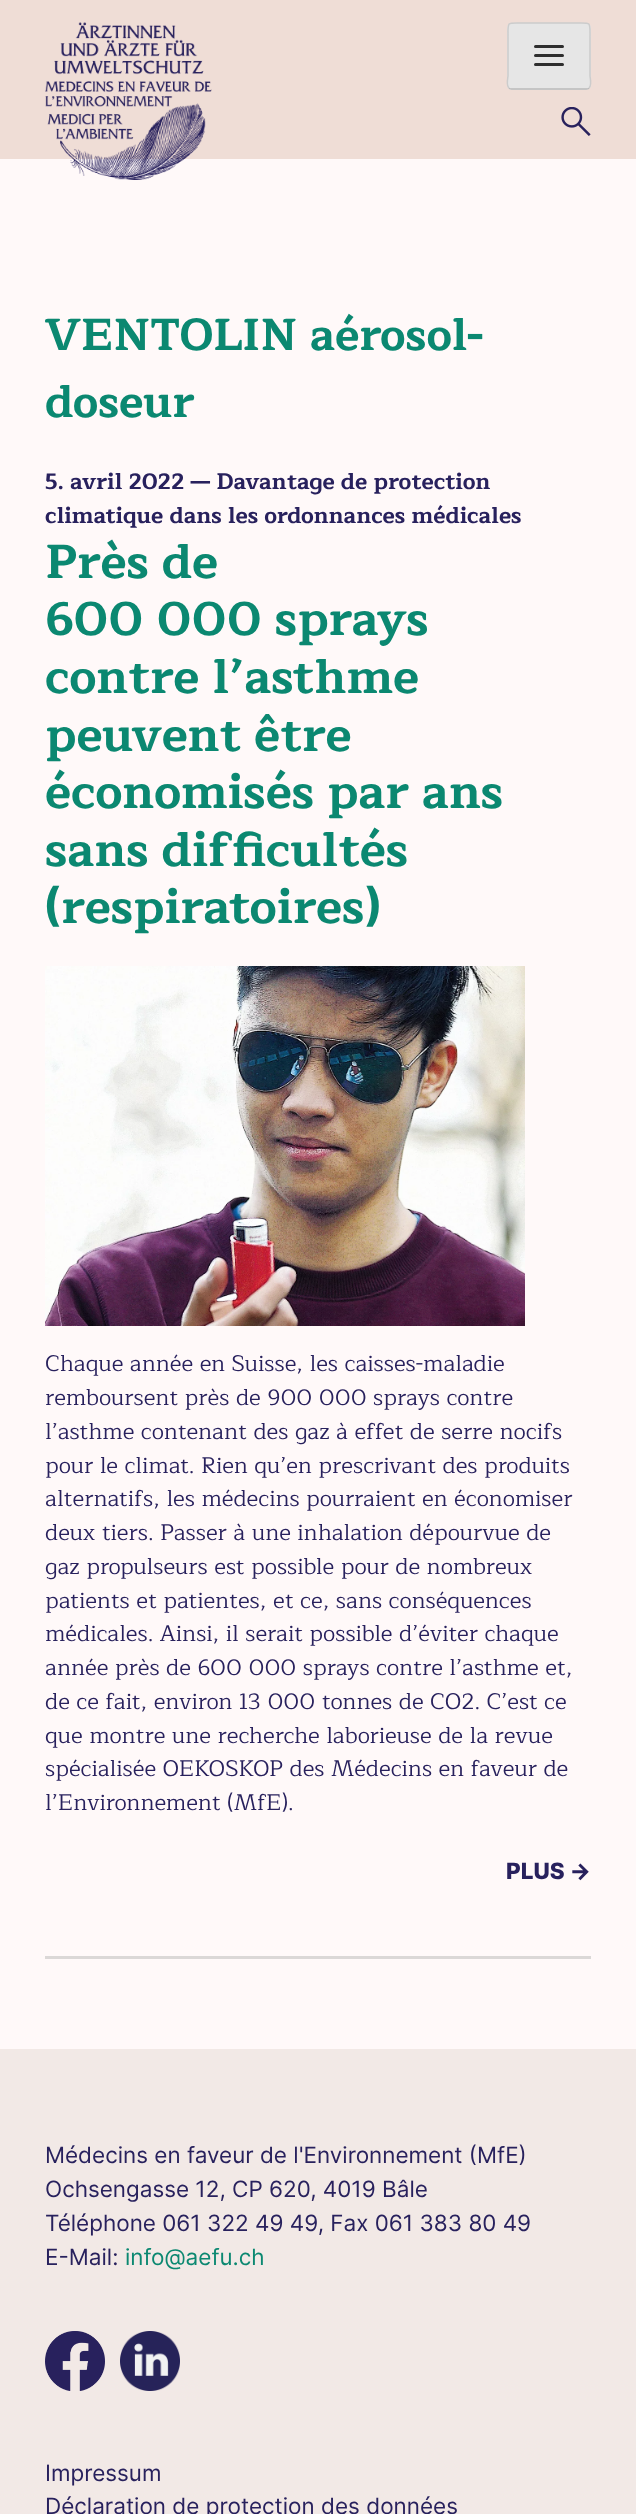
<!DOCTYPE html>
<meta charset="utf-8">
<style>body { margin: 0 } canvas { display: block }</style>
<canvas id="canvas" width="636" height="2514"></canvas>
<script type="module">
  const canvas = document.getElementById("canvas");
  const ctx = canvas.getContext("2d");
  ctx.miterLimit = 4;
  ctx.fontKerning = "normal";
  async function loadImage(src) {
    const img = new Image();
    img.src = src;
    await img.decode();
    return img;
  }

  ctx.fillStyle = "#fff9f9";
  ctx.fillRect(0, 0, 636, 2514);
  ctx.fillStyle = "#efddd6";
  ctx.fillRect(0, 0, 636, 159);
  ctx.drawImage(await loadImage("img1.png"), 45, 22, 167, 158);
  ctx.fillStyle = "#e6e6e6";
  ctx.beginPath();
  ctx.roundRect(507, 23, 84, 67, 5);
  ctx.fill();
  ctx.beginPath();
  ctx.moveTo(589, 88);
  ctx.bezierCurveTo(588.5, 89, 587.5, 89, 586.5, 89);
  ctx.lineTo(511.5, 89);
  ctx.bezierCurveTo(510.5, 89, 509.5, 89, 509, 88);
  ctx.strokeStyle = "#bbbbbb";
  ctx.lineWidth = 1.5;
  ctx.stroke();
  ctx.beginPath();
  ctx.moveTo(509, 88);
  ctx.bezierCurveTo(506, 85.5, 508, 76.5, 508, 76);
  ctx.lineTo(508, 37);
  ctx.bezierCurveTo(508, 20.5, 506.5, 23, 524, 23);
  ctx.lineTo(574, 23);
  ctx.bezierCurveTo(591.5, 23, 590, 20.5, 590, 37);
  ctx.lineTo(590, 76);
  ctx.bezierCurveTo(590, 76.5, 592, 85.5, 589, 88);
  ctx.strokeStyle = "#cccccc";
  ctx.stroke();
  ctx.beginPath();
  ctx.moveTo(535.5, 55.5);
  ctx.lineTo(562.5, 55.5);
  ctx.moveTo(535.5, 46.5);
  ctx.lineTo(562.5, 46.5);
  ctx.moveTo(535.5, 64.5);
  ctx.lineTo(562.5, 64.5);
  ctx.strokeStyle = "#2e2e2e";
  ctx.lineWidth = 3;
  ctx.lineCap = "round";
  ctx.lineJoin = "round";
  ctx.stroke();
  ctx.drawImage(await loadImage("img2.png"), 561, 107, 30, 29);
  ctx.font = "bold 45px Maitree";
  ctx.fillStyle = "#0b8871";
  ctx.fillText("VENTOLIN aérosol-", 45, 350);
  ctx.fillText("doseur", 45, 417);
  ctx.fillStyle = "#dbd8d7";
  ctx.fillRect(45, 1956, 546, 3);
  ctx.font = "bold 22.5px Maitree";
  ctx.fillStyle = "#28215d";
  ctx.fillText("5. avril 2022 — Davantage de protection", 45, 489);
  ctx.fillText("climatique dans les ordonnances médicales", 45, 523);
  ctx.font = "bold 48px Maitree";
  ctx.fillStyle = "#0b8871";
  ctx.fillText("Près de", 45, 578);
  ctx.fillText("600 000 sprays", 45, 635);
  ctx.fillText("contre l’asthme", 45, 693);
  ctx.fillText("peuvent être", 45, 751);
  ctx.fillText("économisés par ans", 45, 808);
  ctx.fillText("sans difficultés", 45, 866);
  ctx.fillText("(respiratoires)", 45, 923);
  ctx.drawImage(await loadImage("img3.png"), 45, 966, 480, 360);
  ctx.font = "22.5px Maitree";
  ctx.fillStyle = "#28215d";
  ctx.fillText("Chaque année en Suisse, les caisses-maladie", 45, 1371);
  ctx.fillText("remboursent près de 900 000 sprays contre", 45, 1405);
  ctx.fillText("l’asthme contenant des gaz à effet de serre nocifs", 45, 1439);
  ctx.fillText("pour le climat. Rien qu’en prescrivant des produits", 45, 1473);
  ctx.fillText("alternatifs, les médecins pourraient en économiser", 45, 1506);
  ctx.fillText("deux tiers. Passer à une inhalation dépourvue de", 45, 1540);
  ctx.fillText("gaz propulseurs est possible pour de nombreux", 45, 1574);
  ctx.fillText("patients et patientes, et ce, sans conséquences", 45, 1608);
  ctx.fillText("médicales. Ainsi, il serait possible d’éviter chaque", 45, 1641);
  ctx.fillText("année près de 600 000 sprays contre l’asthme et,", 45, 1675);
  ctx.fillText("de ce fait, environ 13 000 tonnes de CO2. C’est ce", 45, 1709);
  ctx.fillText("que montre une recherche laborieuse de la revue", 45, 1743);
  ctx.fillText("spécialisée OEKOSKOP des Médecins en faveur de", 45, 1776);
  ctx.fillText("l’Environnement (MfE).", 45, 1810);
  ctx.font = "800 22.5px Inter";
  ctx.fillText("PLUS →", 506, 1879);
  ctx.fillStyle = "#f2e9e6";
  ctx.fillRect(0, 2049, 636, 465);
  ctx.font = "22.5px Inter";
  ctx.fillStyle = "#28215d";
  ctx.fillText("Médecins en faveur de l'Environnement (MfE)", 45, 2163);
  ctx.fillText("Ochsengasse 12, CP 620, 4019 Bâle", 45, 2197);
  ctx.fillText("Téléphone 061 322 49 49, Fax 061 383 80 49", 45, 2231);
  ctx.fillText("E-Mail:", 45, 2265);
  ctx.fillStyle = "#0b8871";
  ctx.fillText("info@aefu.ch", 125, 2265);
  ctx.drawImage(await loadImage("img4.png"), 45, 2331, 60, 60);
  ctx.drawImage(await loadImage("img5.png"), 120, 2331, 60, 60);
  ctx.fillStyle = "#28215d";
  ctx.fillText("Impressum", 45, 2481);
  ctx.fillText("Déclaration de protection des données", 45, 2514);
</script>
